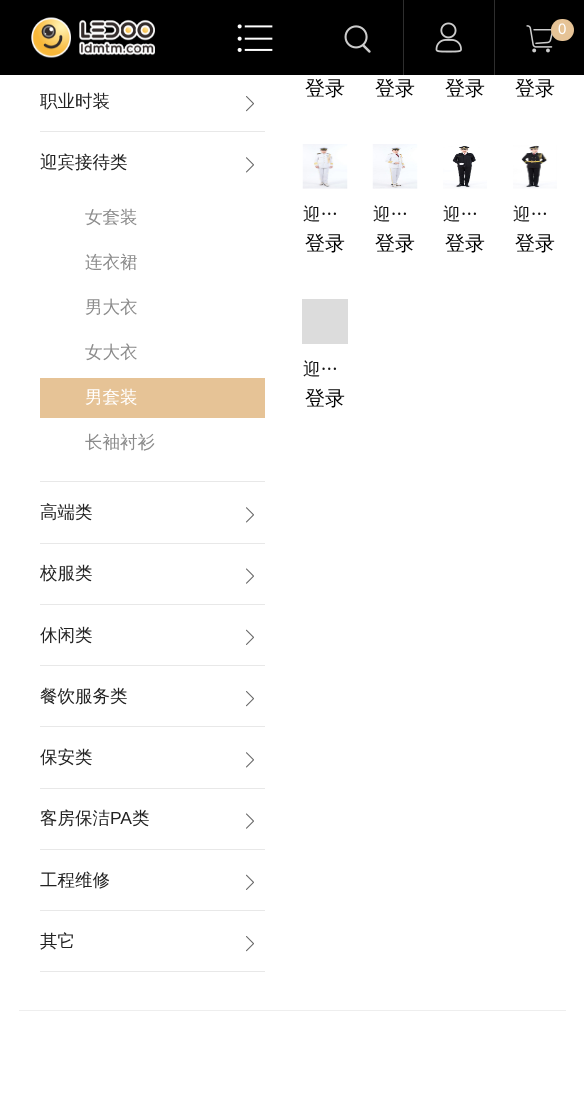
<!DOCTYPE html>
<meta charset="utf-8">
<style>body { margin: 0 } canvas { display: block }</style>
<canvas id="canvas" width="584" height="1097"></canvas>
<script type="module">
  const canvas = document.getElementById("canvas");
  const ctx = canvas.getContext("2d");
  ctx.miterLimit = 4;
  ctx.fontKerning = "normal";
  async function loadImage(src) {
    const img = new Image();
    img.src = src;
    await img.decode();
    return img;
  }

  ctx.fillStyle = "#ffffff";
  ctx.fillRect(0, 0, 584, 1097);
  ctx.fillStyle = "#000000";
  ctx.fillRect(0, 0, 584, 75);
  ctx.drawImage(await loadImage("img1.png"), 31, 17, 124, 41);
  ctx.drawImage(await loadImage("img2.png"), 237, 24, 36, 28);
  ctx.drawImage(await loadImage("img3.png"), 344, 25, 27, 28);
  ctx.fillStyle = "#2e2e2e";
  ctx.fillRect(403, 0, 1, 75);
  ctx.drawImage(await loadImage("img4.png"), 435, 22, 27, 31);
  ctx.fillRect(494, 0, 1, 75);
  ctx.drawImage(await loadImage("img5.png"), 526, 25, 27, 28);
  ctx.fillStyle = "#e6c396";
  ctx.beginPath();
  ctx.roundRect(551, 19, 23, 22, 11);
  ctx.fill();
  ctx.letterSpacing = "-1px";
  ctx.font = "15px Liberation Sans";
  ctx.fillStyle = "#ffffff";
  ctx.fillText("0", 558, 34);
  ctx.fillStyle = "#e8e8e8";
  ctx.fillRect(40, 131, 225, 1);
  ctx.letterSpacing = "0px";
  ctx.font = "500 17.5px WenQuanYi Zen Hei";
  ctx.fillStyle = "#222222";
  ctx.fillText("职业时装", 40, 107);
  ctx.drawImage(await loadImage("img6.png"), 246, 96, 8, 16);
  ctx.fillStyle = "#e8e8e8";
  ctx.fillRect(40, 481, 225, 1);
  ctx.fillStyle = "#222222";
  ctx.fillText("迎宾接待类", 40, 168);
  ctx.drawImage(await loadImage("img7.png"), 246, 157, 8, 16);
  ctx.fillStyle = "#8c8c8c";
  ctx.fillText("女套装", 85, 223);
  ctx.fillText("连衣裙", 85, 268);
  ctx.fillText("男大衣", 85, 313);
  ctx.fillText("女大衣", 85, 358);
  ctx.fillStyle = "#e6c396";
  ctx.fillRect(40, 378, 225, 40);
  ctx.fillStyle = "#ffffff";
  ctx.fillText("男套装", 85, 403);
  ctx.fillStyle = "#8c8c8c";
  ctx.fillText("长袖衬衫", 85, 448);
  ctx.fillStyle = "#e8e8e8";
  ctx.fillRect(40, 543, 225, 1);
  ctx.fillStyle = "#222222";
  ctx.fillText("高端类", 40, 518);
  ctx.drawImage(await loadImage("img7.png"), 246, 507, 8, 16);
  ctx.fillStyle = "#e8e8e8";
  ctx.fillRect(40, 604, 225, 1);
  ctx.fillStyle = "#222222";
  ctx.fillText("校服类", 40, 579);
  ctx.drawImage(await loadImage("img8.png"), 246, 568, 8, 16);
  ctx.fillStyle = "#e8e8e8";
  ctx.fillRect(40, 665, 225, 1);
  ctx.fillStyle = "#222222";
  ctx.fillText("休闲类", 40, 641);
  ctx.drawImage(await loadImage("img9.png"), 246, 629, 8, 16);
  ctx.fillStyle = "#e8e8e8";
  ctx.fillRect(40, 726, 225, 1);
  ctx.fillStyle = "#222222";
  ctx.fillText("餐饮服务类", 40, 702);
  ctx.drawImage(await loadImage("img6.png"), 246, 691, 8, 16);
  ctx.fillStyle = "#e8e8e8";
  ctx.fillRect(40, 788, 225, 1);
  ctx.fillStyle = "#222222";
  ctx.fillText("保安类", 40, 763);
  ctx.drawImage(await loadImage("img7.png"), 246, 752, 8, 16);
  ctx.fillStyle = "#e8e8e8";
  ctx.fillRect(40, 849, 225, 1);
  ctx.fillStyle = "#222222";
  ctx.fillText("客房保洁", 40, 824);
  ctx.font = "17.5px Liberation Sans";
  ctx.fillText("PA", 110, 824);
  ctx.font = "500 17.5px WenQuanYi Zen Hei";
  ctx.fillText("类", 132, 824);
  ctx.drawImage(await loadImage("img8.png"), 246, 813, 8, 16);
  ctx.fillStyle = "#e8e8e8";
  ctx.fillRect(40, 910, 225, 1);
  ctx.fillStyle = "#222222";
  ctx.fillText("工程维修", 40, 886);
  ctx.drawImage(await loadImage("img9.png"), 246, 874, 8, 16);
  ctx.fillStyle = "#e8e8e8";
  ctx.fillRect(40, 971, 225, 1);
  ctx.fillStyle = "#222222";
  ctx.fillText("其它", 40, 947);
  ctx.drawImage(await loadImage("img6.png"), 246, 936, 8, 16);
  ctx.font = "500 20px WenQuanYi Zen Hei";
  ctx.fillStyle = "#000000";
  ctx.fillText("登录", 305, 95);
  ctx.fillText("登录", 375, 95);
  ctx.fillText("登录", 445, 95);
  ctx.fillText("登录", 515, 95);
  ctx.drawImage(await loadImage("img10.png"), 302, 144, 46, 45);
  ctx.font = "500 17.5px WenQuanYi Zen Hei";
  ctx.fillStyle = "#151515";
  ctx.fillText("迎…", 303, 220);
  ctx.font = "500 20px WenQuanYi Zen Hei";
  ctx.fillStyle = "#000000";
  ctx.fillText("登录", 305, 250);
  ctx.drawImage(await loadImage("img11.png"), 372, 144, 46, 45);
  ctx.font = "500 17.5px WenQuanYi Zen Hei";
  ctx.fillStyle = "#151515";
  ctx.fillText("迎…", 373, 220);
  ctx.font = "500 20px WenQuanYi Zen Hei";
  ctx.fillStyle = "#000000";
  ctx.fillText("登录", 375, 250);
  ctx.drawImage(await loadImage("img12.png"), 443, 146, 44, 43);
  ctx.font = "500 17.5px WenQuanYi Zen Hei";
  ctx.fillStyle = "#151515";
  ctx.fillText("迎…", 443, 220);
  ctx.font = "500 20px WenQuanYi Zen Hei";
  ctx.fillStyle = "#000000";
  ctx.fillText("登录", 445, 250);
  ctx.drawImage(await loadImage("img13.png"), 513, 145, 44, 44);
  ctx.font = "500 17.5px WenQuanYi Zen Hei";
  ctx.fillStyle = "#151515";
  ctx.fillText("迎…", 513, 220);
  ctx.font = "500 20px WenQuanYi Zen Hei";
  ctx.fillStyle = "#000000";
  ctx.fillText("登录", 515, 250);
  ctx.fillStyle = "#dcdcdc";
  ctx.fillRect(302, 299, 46, 45);
  ctx.font = "500 17.5px WenQuanYi Zen Hei";
  ctx.fillStyle = "#151515";
  ctx.fillText("迎…", 303, 375);
  ctx.font = "500 20px WenQuanYi Zen Hei";
  ctx.fillStyle = "#000000";
  ctx.fillText("登录", 305, 405);
  ctx.fillStyle = "#eeeeee";
  ctx.fillRect(19, 1010, 547, 1);
</script>
